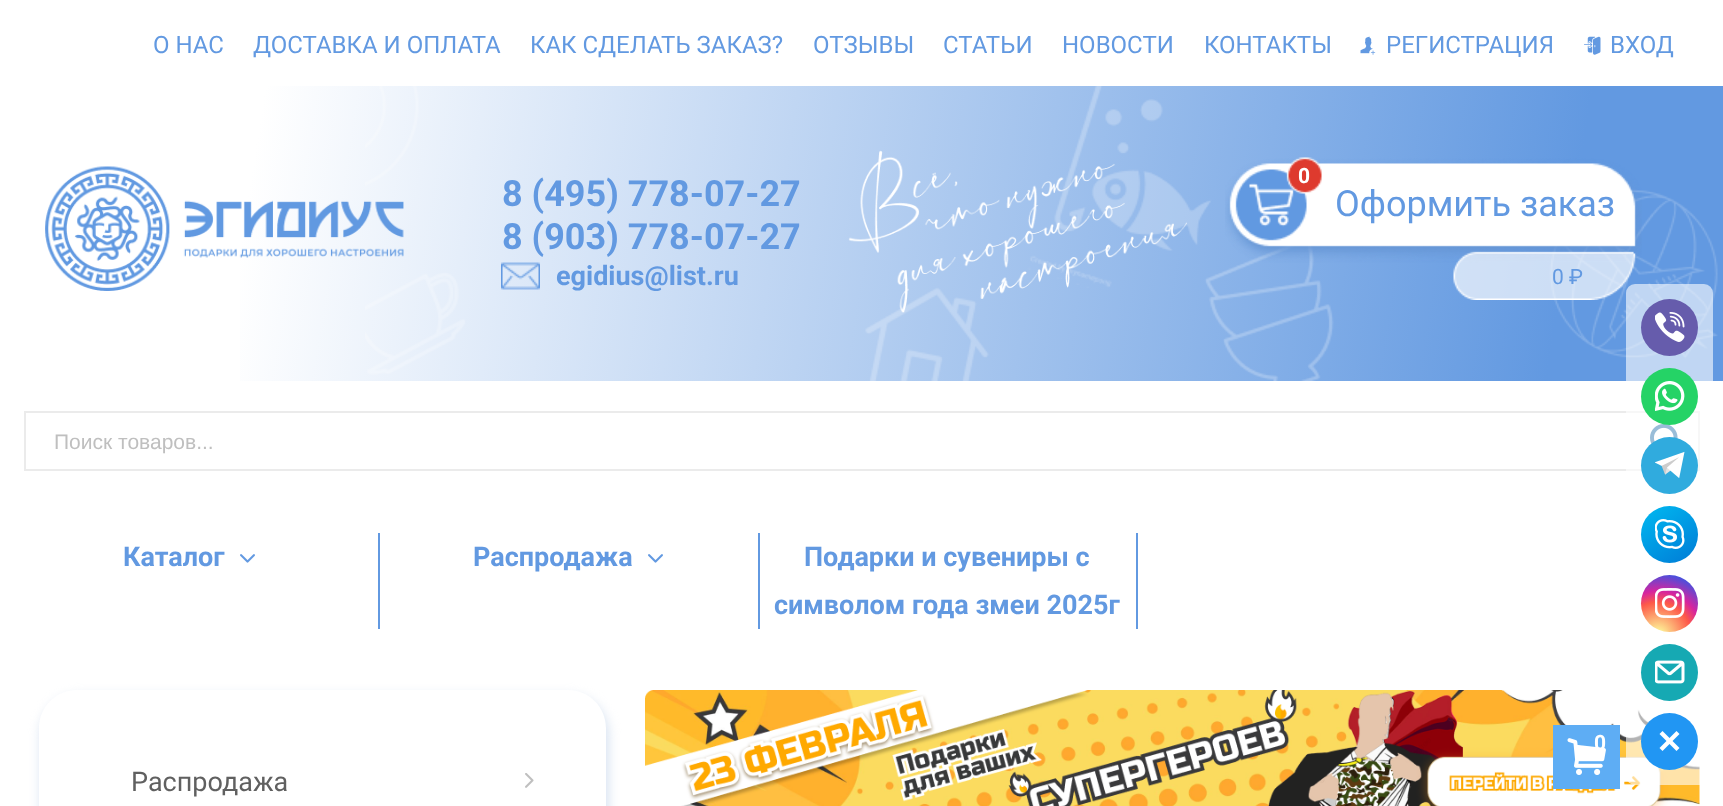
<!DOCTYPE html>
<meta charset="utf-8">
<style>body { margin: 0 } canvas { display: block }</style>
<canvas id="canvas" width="1723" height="806"></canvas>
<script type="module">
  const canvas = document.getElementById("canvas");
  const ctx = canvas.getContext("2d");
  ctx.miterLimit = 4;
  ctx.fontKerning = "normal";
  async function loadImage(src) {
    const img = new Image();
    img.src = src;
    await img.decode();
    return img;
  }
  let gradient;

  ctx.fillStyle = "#ffffff";
  ctx.fillRect(0, 0, 1723, 806);
  ctx.font = "24px Roboto";
  ctx.fillStyle = "#6299e1";
  ctx.fillText("О НАС", 153, 53);
  ctx.fillText("ДОСТАВКА И ОПЛАТА", 253, 53);
  ctx.fillText("КАК СДЕЛАТЬ ЗАКАЗ?", 530, 53);
  ctx.fillText("ОТЗЫВЫ", 813, 53);
  ctx.fillText("СТАТЬИ", 943, 53);
  ctx.fillText("НОВОСТИ", 1062, 53);
  ctx.fillText("КОНТАКТЫ", 1204, 53);
  ctx.drawImage(await loadImage("img1.png"), 1360, 36, 16, 19);
  ctx.fillText("РЕГИСТРАЦИЯ", 1386, 53);
  ctx.drawImage(await loadImage("img2.png"), 1584, 36, 17, 19);
  ctx.fillText("ВХОД", 1610, 53);
  gradient = ctx.createLinearGradient(-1.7, 96, 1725, 370);
  gradient.addColorStop(0.15, "#ffffff");
  gradient.addColorStop(0.9, "#6299e1");
  ctx.fillStyle = gradient;
  ctx.fillRect(240, 86, 1483, 295);
  ctx.drawImage(await loadImage("img3.png"), 365, 86, 1353, 295);
  ctx.drawImage(await loadImage("img4.png"), 45, 166, 359, 125);
  ctx.font = "bold 36px Roboto";
  ctx.fillStyle = "#6299e1";
  ctx.fillText("8 (495) 778-07-27", 502, 206);
  ctx.fillText("8 (903) 778-07-27", 502, 249);
  ctx.drawImage(await loadImage("img5.png"), 501, 262, 39, 28);
  ctx.font = "bold 27px Roboto";
  ctx.fillText("egidius@list.ru", 556, 285);
  ctx.drawImage(await loadImage("img6.png"), 848, 150, 339, 163);
  ctx.drawImage(await loadImage("img7.png"), 1225, 157, 417, 143);
  ctx.font = "bold 21px Roboto";
  ctx.fillStyle = "#ffffff";
  ctx.fillText("0", 1298, 183);
  ctx.font = "36px Roboto";
  ctx.fillStyle = "#6299e1";
  ctx.fillText("Оформить заказ", 1335, 216);
  ctx.font = "21px Roboto";
  ctx.fillText("0 ₽", 1552, 284);
  ctx.strokeStyle = "#ebebeb";
  ctx.lineWidth = 2;
  ctx.strokeRect(25, 412, 1674, 58);
  ctx.font = "21px Liberation Sans";
  ctx.fillStyle = "#bfbfbf";
  ctx.fillText("Поиск товаров...", 54, 449);
  ctx.drawImage(await loadImage("img8.png"), 1650, 424, 28, 20);
  ctx.fillStyle = "#6299e1";
  ctx.fillRect(378, 533, 2, 96);
  ctx.font = "bold 27px Roboto";
  ctx.fillText("Каталог", 123, 566);
  ctx.drawImage(await loadImage("img9.png"), 240, 554, 15, 9);
  ctx.fillRect(758, 533, 2, 96);
  ctx.fillText("Распродажа", 473, 566);
  ctx.drawImage(await loadImage("img9.png"), 648, 554, 15, 9);
  ctx.fillRect(1136, 533, 2, 96);
  ctx.fillText("Подарки и сувениры с", 804, 566);
  ctx.fillText("символом года змеи 2025г", 774, 614);
  ctx.save();
  ctx.beginPath();
  ctx.moveTo(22, 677);
  ctx.lineTo(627, 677);
  ctx.lineTo(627, 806);
  ctx.lineTo(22, 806);
  ctx.closePath();
  ctx.moveTo(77, 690);
  ctx.lineTo(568, 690);
  ctx.bezierCurveTo(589, 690, 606, 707, 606, 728);
  ctx.lineTo(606, 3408);
  ctx.bezierCurveTo(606, 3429, 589, 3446, 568, 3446);
  ctx.lineTo(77, 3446);
  ctx.bezierCurveTo(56, 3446, 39, 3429, 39, 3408);
  ctx.lineTo(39, 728);
  ctx.bezierCurveTo(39, 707, 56, 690, 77, 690);
  ctx.closePath();
  ctx.clip("evenodd");
  ctx.fillStyle = "#d3dfef";
  ctx.filter = "blur(6px)";
  ctx.beginPath();
  ctx.roundRect(41, 696, 567, 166, 38);
  ctx.fill();
  ctx.filter = "none";
  ctx.restore();
  ctx.font = "27px Roboto";
  ctx.fillStyle = "#606060";
  ctx.fillText("Распродажа", 131, 791);
  ctx.drawImage(await loadImage("img10.png"), 525, 773, 9, 15);
  ctx.drawImage(await loadImage("img11.png"), 645, 690, 1055, 116);
  ctx.fillStyle = "#5eadf4";
  ctx.fillRect(1553, 725, 67, 64);
  ctx.drawImage(await loadImage("img12.png"), 1567, 738, 39, 37);
  ctx.font = "bold 21px Roboto";
  ctx.fillStyle = "#ffffff";
  ctx.fillText("0", 1594, 750);
  ctx.fillStyle = "rgba(255, 255, 255, 0.6)";
  ctx.beginPath();
  ctx.roundRect(1626, 284, 87, 501, 9);
  ctx.fill();
  ctx.fillStyle = "#665cac";
  ctx.beginPath();
  ctx.arc(1669.5, 327.5, 28.5, 0, Math.PI * 2);
  ctx.fill();
  ctx.drawImage(await loadImage("img13.png"), 1655, 312, 30, 30);
  ctx.fillStyle = "#25d366";
  ctx.beginPath();
  ctx.arc(1669.5, 396.5, 28.5, 0, Math.PI * 2);
  ctx.fill();
  ctx.drawImage(await loadImage("img14.png"), 1655, 381, 30, 30);
  ctx.fillStyle = "#30abde";
  ctx.beginPath();
  ctx.arc(1669.5, 465.5, 28.5, 0, Math.PI * 2);
  ctx.fill();
  ctx.drawImage(await loadImage("img15.png"), 1655, 451, 30, 28);
  gradient = ctx.createLinearGradient(1647, 501, 1692, 567);
  gradient.addColorStop(0, "#00baf1");
  gradient.addColorStop(1, "#007bd6");
  ctx.fillStyle = gradient;
  ctx.beginPath();
  ctx.arc(1669.5, 534.5, 28.5, 0, Math.PI * 2);
  ctx.fill();
  ctx.drawImage(await loadImage("img16.png"), 1655, 519, 30, 30);
  gradient = ctx.createRadialGradient(1658, 635, 0, 1658, 635, 73);
  gradient.addColorStop(0, "#fdf497");
  gradient.addColorStop(0.05, "#fdf497");
  gradient.addColorStop(0.45, "#fd5949");
  gradient.addColorStop(0.6, "#d6249f");
  gradient.addColorStop(0.9, "#285aeb");
  ctx.fillStyle = gradient;
  ctx.beginPath();
  ctx.arc(1669.5, 603.5, 28.5, 0, Math.PI * 2);
  ctx.fill();
  ctx.drawImage(await loadImage("img17.png"), 1655, 588, 30, 30);
  ctx.fillStyle = "#16a9b3";
  ctx.beginPath();
  ctx.arc(1669.5, 672.5, 28.5, 0, Math.PI * 2);
  ctx.fill();
  ctx.drawImage(await loadImage("img18.png"), 1655, 660, 30, 24);
  ctx.fillStyle = "#2196f3";
  ctx.beginPath();
  ctx.arc(1669.5, 741.5, 28.5, 0, Math.PI * 2);
  ctx.fill();
  ctx.fillStyle = "#ffffff";
  ctx.beginPath();
  ctx.moveTo(1662.5, 731);
  ctx.lineTo(1679.5, 748);
  ctx.lineTo(1676.5, 751);
  ctx.lineTo(1659.5, 734);
  ctx.closePath();
  ctx.fill();
  ctx.beginPath();
  ctx.moveTo(1659.5, 748);
  ctx.lineTo(1676.5, 731);
  ctx.lineTo(1679.5, 734);
  ctx.lineTo(1662.5, 751);
  ctx.closePath();
  ctx.fill();
</script>
